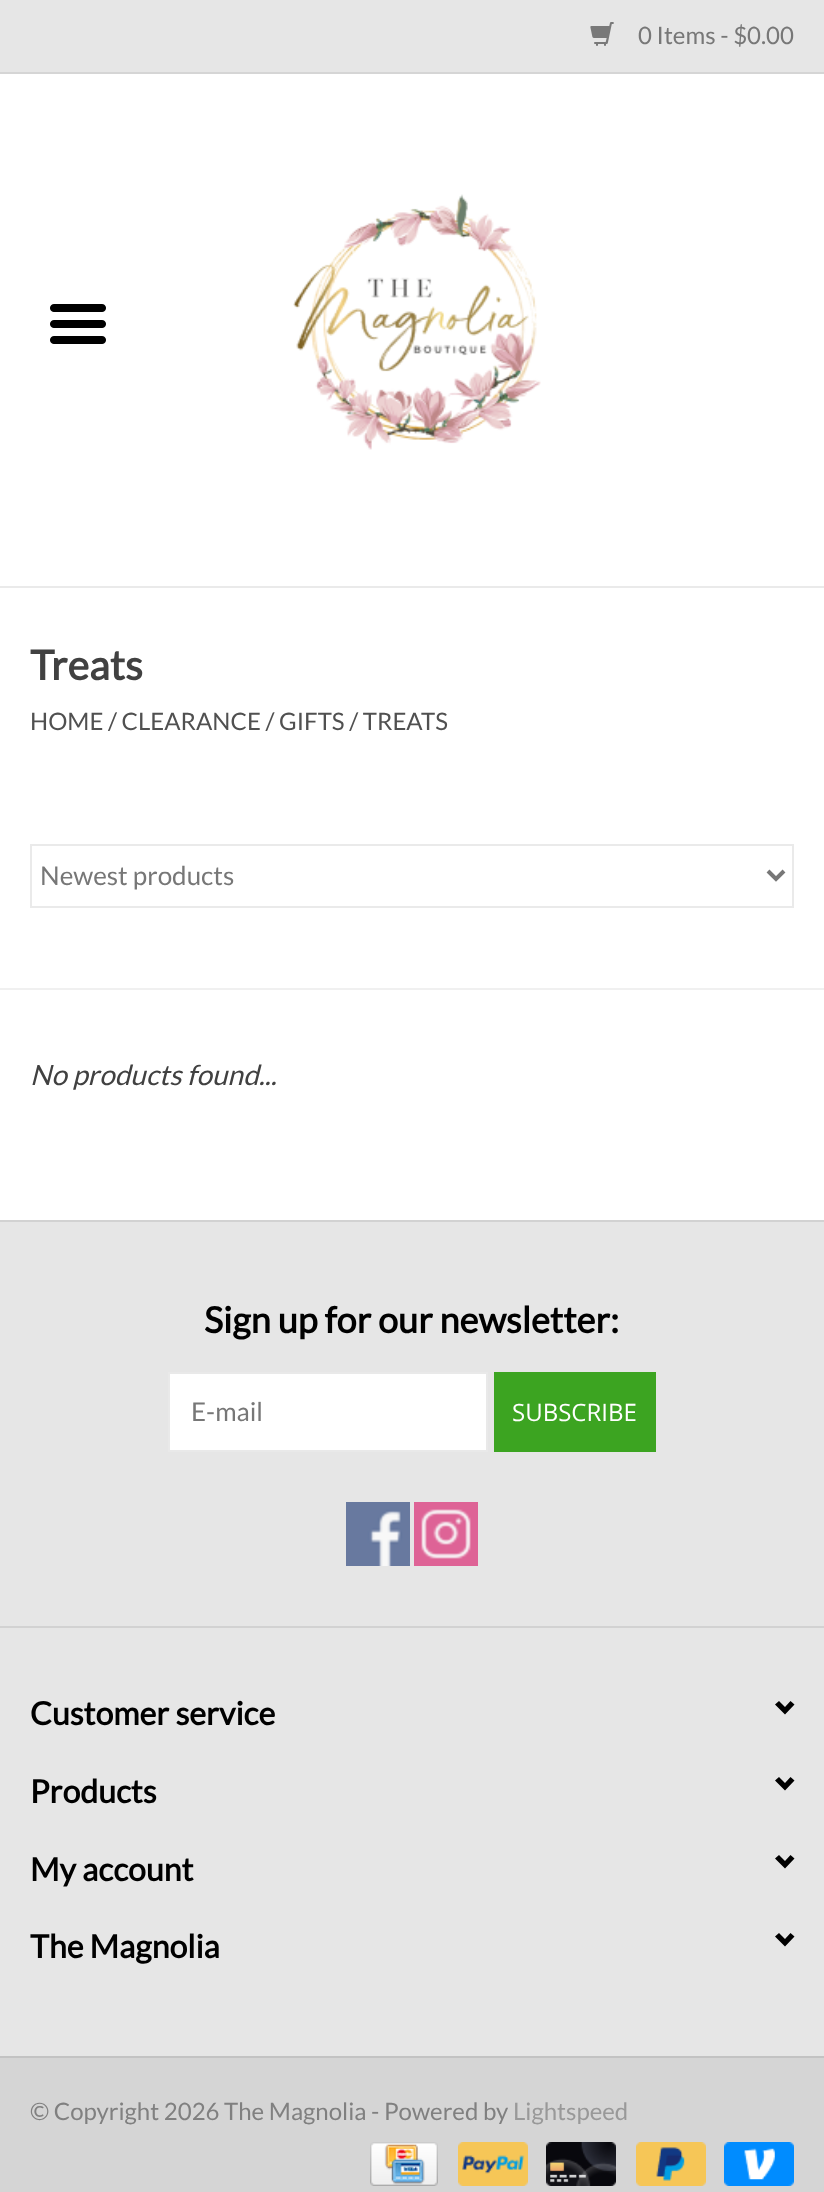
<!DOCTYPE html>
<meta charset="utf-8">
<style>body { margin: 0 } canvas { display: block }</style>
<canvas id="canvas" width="824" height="2192"></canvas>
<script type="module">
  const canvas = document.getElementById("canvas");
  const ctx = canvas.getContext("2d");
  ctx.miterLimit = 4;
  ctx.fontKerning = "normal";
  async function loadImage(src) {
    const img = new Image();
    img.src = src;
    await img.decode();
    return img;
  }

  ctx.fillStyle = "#ffffff";
  ctx.fillRect(0, 0, 824, 2192);
  ctx.fillStyle = "#e6e6e6";
  ctx.fillRect(0, 0, 824, 72);
  ctx.fillStyle = "#d5d5d5";
  ctx.fillRect(0, 72, 824, 2);
  ctx.drawImage(await loadImage("img1.png"), 590, 22, 24, 24);
  ctx.font = "24px Lato";
  ctx.fillStyle = "#777777";
  ctx.fillText("0 Items - $0.00", 638, 44);
  ctx.fillStyle = "#eaeaea";
  ctx.fillRect(0, 586, 824, 2);
  ctx.drawImage(await loadImage("img2.png"), 293, 194, 248, 256);
  ctx.drawImage(await loadImage("img3.png"), 50, 304, 56, 40);
  ctx.font = "bold 41px Lato";
  ctx.fillStyle = "#414141";
  ctx.fillText("Treats", 30, 680);
  ctx.font = "24px Lato";
  ctx.fillStyle = "#505050";
  ctx.fillText("HOME / CLEARANCE / GIFTS / TREATS", 30, 730);
  ctx.fillStyle = "#f0f0f0";
  ctx.fillRect(0, 988, 824, 2);
  ctx.strokeStyle = "#eaeaea";
  ctx.lineWidth = 2;
  ctx.strokeRect(31, 845, 762, 62);
  ctx.beginPath();
  ctx.moveTo(768, 871);
  ctx.lineTo(776, 879);
  ctx.lineTo(784, 871);
  ctx.strokeStyle = "#777777";
  ctx.lineWidth = 4;
  ctx.stroke();
  ctx.font = "26px Lato";
  ctx.fillStyle = "#777777";
  ctx.fillText("Newest products", 40, 885);
  ctx.font = "italic 28px Lato";
  ctx.fillStyle = "#414141";
  ctx.fillText("No products found...", 30, 1085);
  ctx.fillStyle = "#e6e6e6";
  ctx.fillRect(0, 1222, 824, 834);
  ctx.fillStyle = "#d2d2d2";
  ctx.fillRect(0, 1220, 824, 2);
  ctx.font = "bold 36px Lato";
  ctx.fillStyle = "#000000";
  ctx.fillText("Sign up for our newsletter:", 204, 1333);
  ctx.fillStyle = "#ffffff";
  ctx.beginPath();
  ctx.rect(169, 1373, 318, 78);
  ctx.fill();
  ctx.strokeStyle = "#e9e9e9";
  ctx.lineWidth = 2;
  ctx.stroke();
  ctx.font = "26px Lato";
  ctx.fillStyle = "#777777";
  ctx.fillText("E-mail", 191, 1421);
  ctx.fillStyle = "#3ca421";
  ctx.fillRect(494, 1372, 162, 80);
  ctx.font = "24px Open Sans";
  ctx.fillStyle = "#ffffff";
  ctx.fillText("SUBSCRIBE", 512, 1421);
  ctx.drawImage(await loadImage("img4.png"), 346, 1502, 64, 64);
  ctx.drawImage(await loadImage("img5.png"), 414, 1502, 64, 64);
  ctx.fillStyle = "#d2d2d2";
  ctx.fillRect(0, 1626, 824, 2);
  ctx.font = "bold 32px Lato";
  ctx.fillStyle = "#000000";
  ctx.fillText("Customer service", 30, 1725);
  ctx.beginPath();
  ctx.moveTo(775, 1704.5);
  ctx.lineTo(785, 1714.5);
  ctx.lineTo(794.5, 1704.5);
  ctx.lineTo(790.5, 1701);
  ctx.lineTo(785, 1707);
  ctx.lineTo(779, 1701);
  ctx.closePath();
  ctx.fill();
  ctx.fillText("Products", 30, 1803);
  ctx.beginPath();
  ctx.moveTo(775, 1780.5);
  ctx.lineTo(785, 1790.5);
  ctx.lineTo(794.5, 1780.5);
  ctx.lineTo(790.5, 1777);
  ctx.lineTo(785, 1783);
  ctx.lineTo(779, 1777);
  ctx.closePath();
  ctx.fill();
  ctx.fillText("My account", 30, 1881);
  ctx.beginPath();
  ctx.moveTo(775, 1858.5);
  ctx.lineTo(785, 1868.5);
  ctx.lineTo(794.5, 1858.5);
  ctx.lineTo(790.5, 1855);
  ctx.lineTo(785, 1861);
  ctx.lineTo(779, 1855);
  ctx.closePath();
  ctx.fill();
  ctx.fillText("The Magnolia", 30, 1958);
  ctx.beginPath();
  ctx.moveTo(775, 1936.5);
  ctx.lineTo(785, 1946.5);
  ctx.lineTo(794.5, 1936.5);
  ctx.lineTo(790.5, 1933);
  ctx.lineTo(785, 1939);
  ctx.lineTo(779, 1933);
  ctx.closePath();
  ctx.fill();
  ctx.fillStyle = "#c3c3c3";
  ctx.fillRect(0, 2056, 824, 2);
  ctx.fillStyle = "#d5d5d5";
  ctx.fillRect(0, 2058, 824, 134);
  ctx.font = "24px Lato";
  ctx.fillStyle = "#808080";
  ctx.fillText("© Copyright 2026 The Magnolia - Powered by", 30, 2120);
  ctx.fillStyle = "#999999";
  ctx.fillText("Lightspeed", 513, 2120);
  ctx.drawImage(await loadImage("img6.png"), 370, 2142, 68, 44);
  ctx.drawImage(await loadImage("img7.png"), 458, 2142, 70, 44);
  ctx.drawImage(await loadImage("img8.png"), 546, 2142, 70, 44);
  ctx.drawImage(await loadImage("img9.png"), 636, 2142, 70, 44);
  ctx.drawImage(await loadImage("img10.png"), 724, 2142, 70, 44);
</script>
